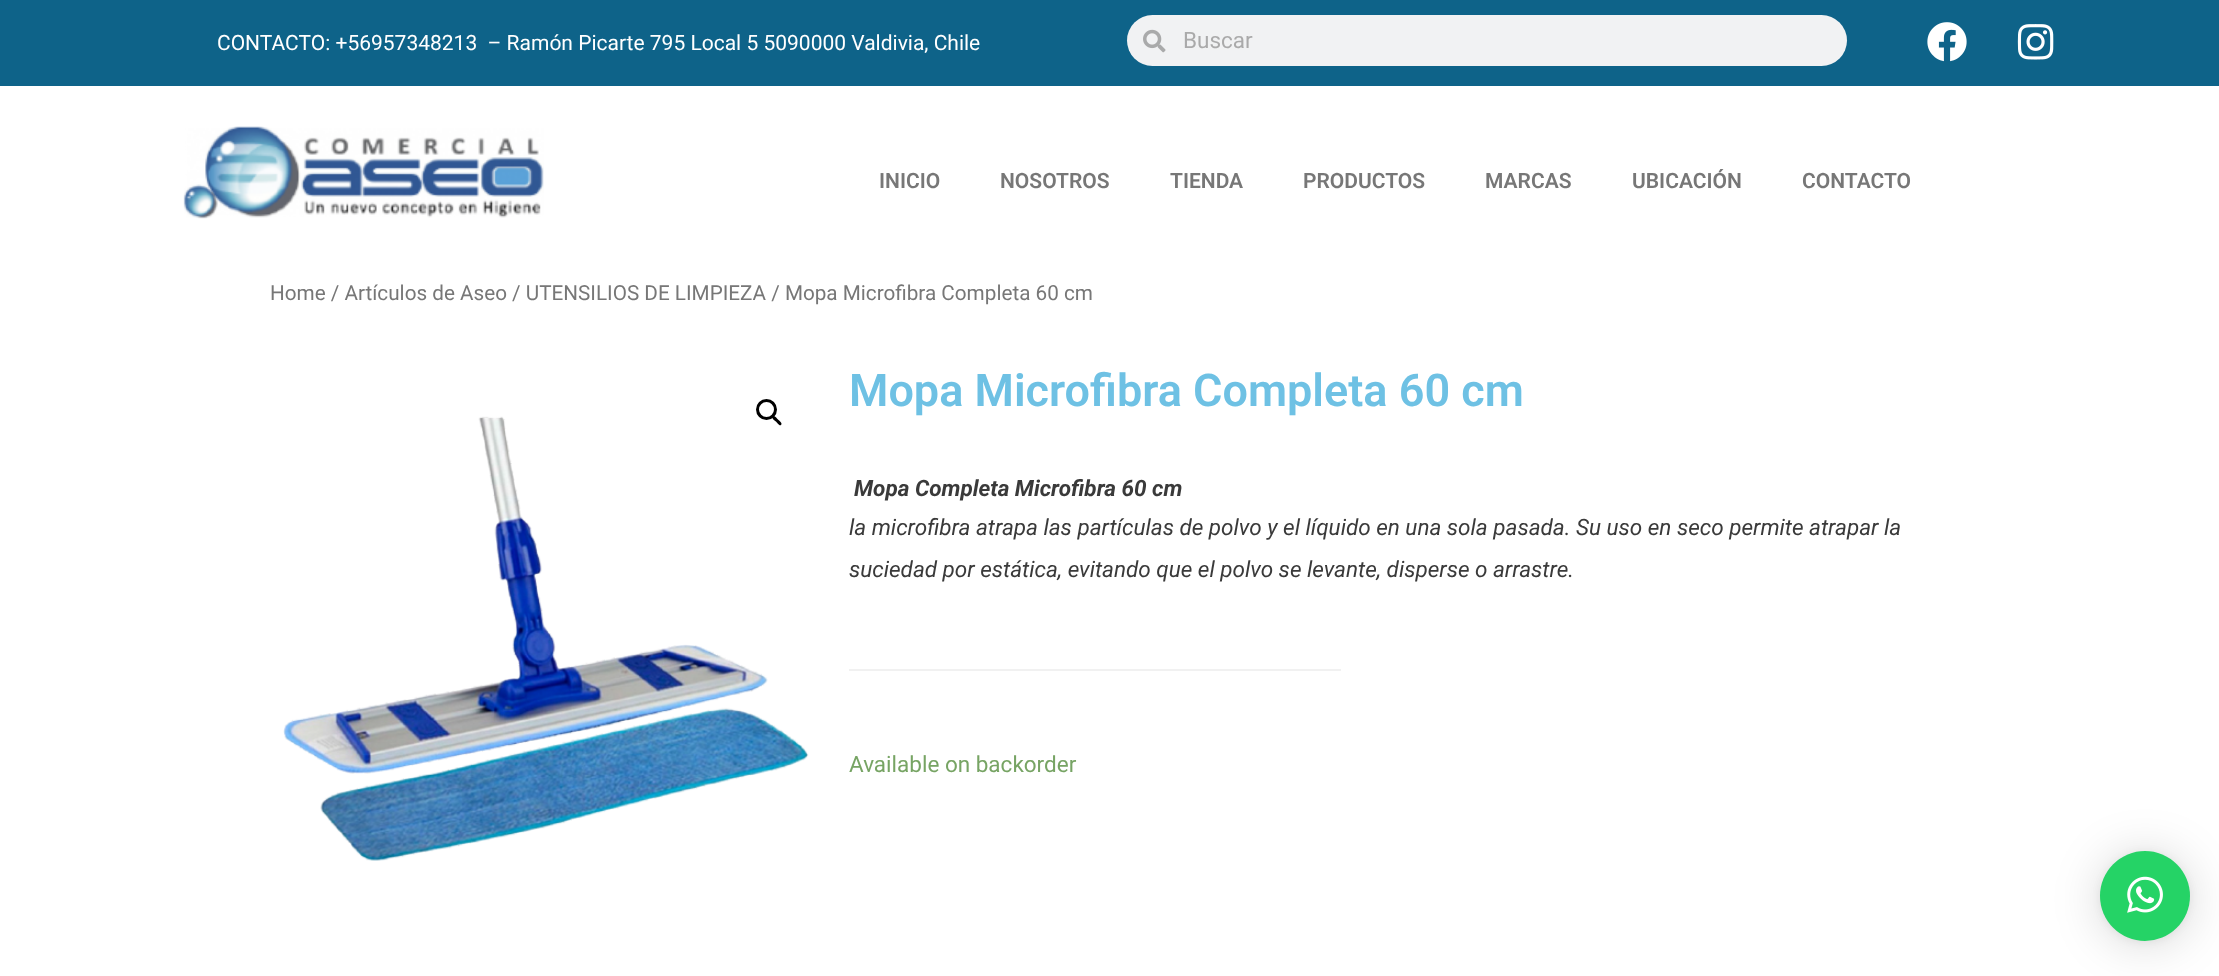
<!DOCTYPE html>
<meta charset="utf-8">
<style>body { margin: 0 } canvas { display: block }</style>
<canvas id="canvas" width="2219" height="976"></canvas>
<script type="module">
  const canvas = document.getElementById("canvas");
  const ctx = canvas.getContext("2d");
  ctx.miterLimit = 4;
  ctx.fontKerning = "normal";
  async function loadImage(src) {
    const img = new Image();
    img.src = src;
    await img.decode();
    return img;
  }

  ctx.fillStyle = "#ffffff";
  ctx.fillRect(0, 0, 2219, 976);
  ctx.fillStyle = "#0e6389";
  ctx.fillRect(0, 0, 2219, 86);
  ctx.font = "21px Roboto";
  ctx.fillStyle = "#ffffff";
  ctx.fillText("CONTACTO: +56957348213  – Ramón Picarte 795 Local 5 5090000 Valdivia, Chile", 217, 50);
  ctx.fillStyle = "#f1f2f3";
  ctx.beginPath();
  ctx.roundRect(1127, 15, 720, 51, 25.5);
  ctx.fill();
  ctx.drawImage(await loadImage("img1.png"), 1143, 29, 23, 24);
  ctx.font = "22.5px Roboto";
  ctx.fillStyle = "#aaaaaa";
  ctx.fillText("Buscar", 1183, 48);
  ctx.drawImage(await loadImage("img2.png"), 1927, 22, 40, 40);
  ctx.drawImage(await loadImage("img3.png"), 2017, 24, 37, 36);
  ctx.drawImage(await loadImage("img4.png"), 183, 126, 361, 93);
  ctx.font = "600 21px Roboto";
  ctx.fillStyle = "#777777";
  ctx.fillText("INICIO", 879, 188);
  ctx.fillText("NOSOTROS", 1000, 188);
  ctx.fillText("TIENDA", 1170, 188);
  ctx.fillText("PRODUCTOS", 1303, 188);
  ctx.fillText("MARCAS", 1485, 188);
  ctx.fillText("UBICACIÓN", 1632, 188);
  ctx.fillText("CONTACTO", 1802, 188);
  ctx.font = "20.7px Roboto";
  ctx.fillText("Home / Artículos de Aseo / UTENSILIOS DE LIMPIEZA / Mopa Microfibra Completa 60 cm", 270, 300);
  ctx.drawImage(await loadImage("img5.png"), 283, 416, 526, 445);
  ctx.beginPath();
  ctx.arc(766.5, 409.5, 9, 0, Math.PI * 2);
  ctx.strokeStyle = "#000000";
  ctx.lineWidth = 3;
  ctx.stroke();
  ctx.fillStyle = "#000000";
  ctx.beginPath();
  ctx.moveTo(772.5, 416.5);
  ctx.bezierCurveTo(774.5, 414.5, 777, 418.5, 778, 419.5);
  ctx.bezierCurveTo(779, 420.5, 783, 423, 781, 425);
  ctx.bezierCurveTo(779.5, 426.5, 777, 422.5, 776, 421.5);
  ctx.bezierCurveTo(775, 421, 771, 418, 772.5, 416.5);
  ctx.closePath();
  ctx.fill();
  ctx.font = "600 45px Roboto";
  ctx.fillStyle = "#6ec1e4";
  ctx.fillText("Mopa Microfibra Completa 60 cm", 849, 406);
  ctx.font = "italic bold 22.5px Roboto";
  ctx.fillStyle = "#3a3a3a";
  ctx.fillText("Mopa Completa Microfibra 60 cm", 854, 496);
  ctx.font = "italic 22.5px Roboto";
  ctx.fillText("la microfibra atrapa las partículas de polvo y el líquido en una sola pasada. Su uso en seco permite atrapar la", 849, 535);
  ctx.fillText("suciedad por estática, evitando que el polvo se levante, disperse o arrastre.", 849, 577);
  ctx.fillStyle = "#f1f1f1";
  ctx.fillRect(849, 669, 492, 2);
  ctx.font = "22.5px Roboto";
  ctx.fillStyle = "#77a464";
  ctx.fillText("Available on backorder", 849, 772);
  ctx.fillStyle = "rgba(0, 0, 0, 0.16)";
  ctx.filter = "blur(24px)";
  ctx.beginPath();
  ctx.roundRect(2100, 854, 90, 90, 45);
  ctx.fill();
  ctx.filter = "none";
  ctx.fillStyle = "rgba(0, 0, 0, 0.06)";
  ctx.filter = "blur(4.5px)";
  ctx.beginPath();
  ctx.roundRect(2100, 852, 90, 90, 45);
  ctx.fill();
  ctx.filter = "none";
  ctx.fillStyle = "#25d366";
  ctx.beginPath();
  ctx.arc(2145, 896, 45, 0, Math.PI * 2);
  ctx.fill();
  ctx.drawImage(await loadImage("img6.png"), 2127, 876, 36, 37);
</script>
